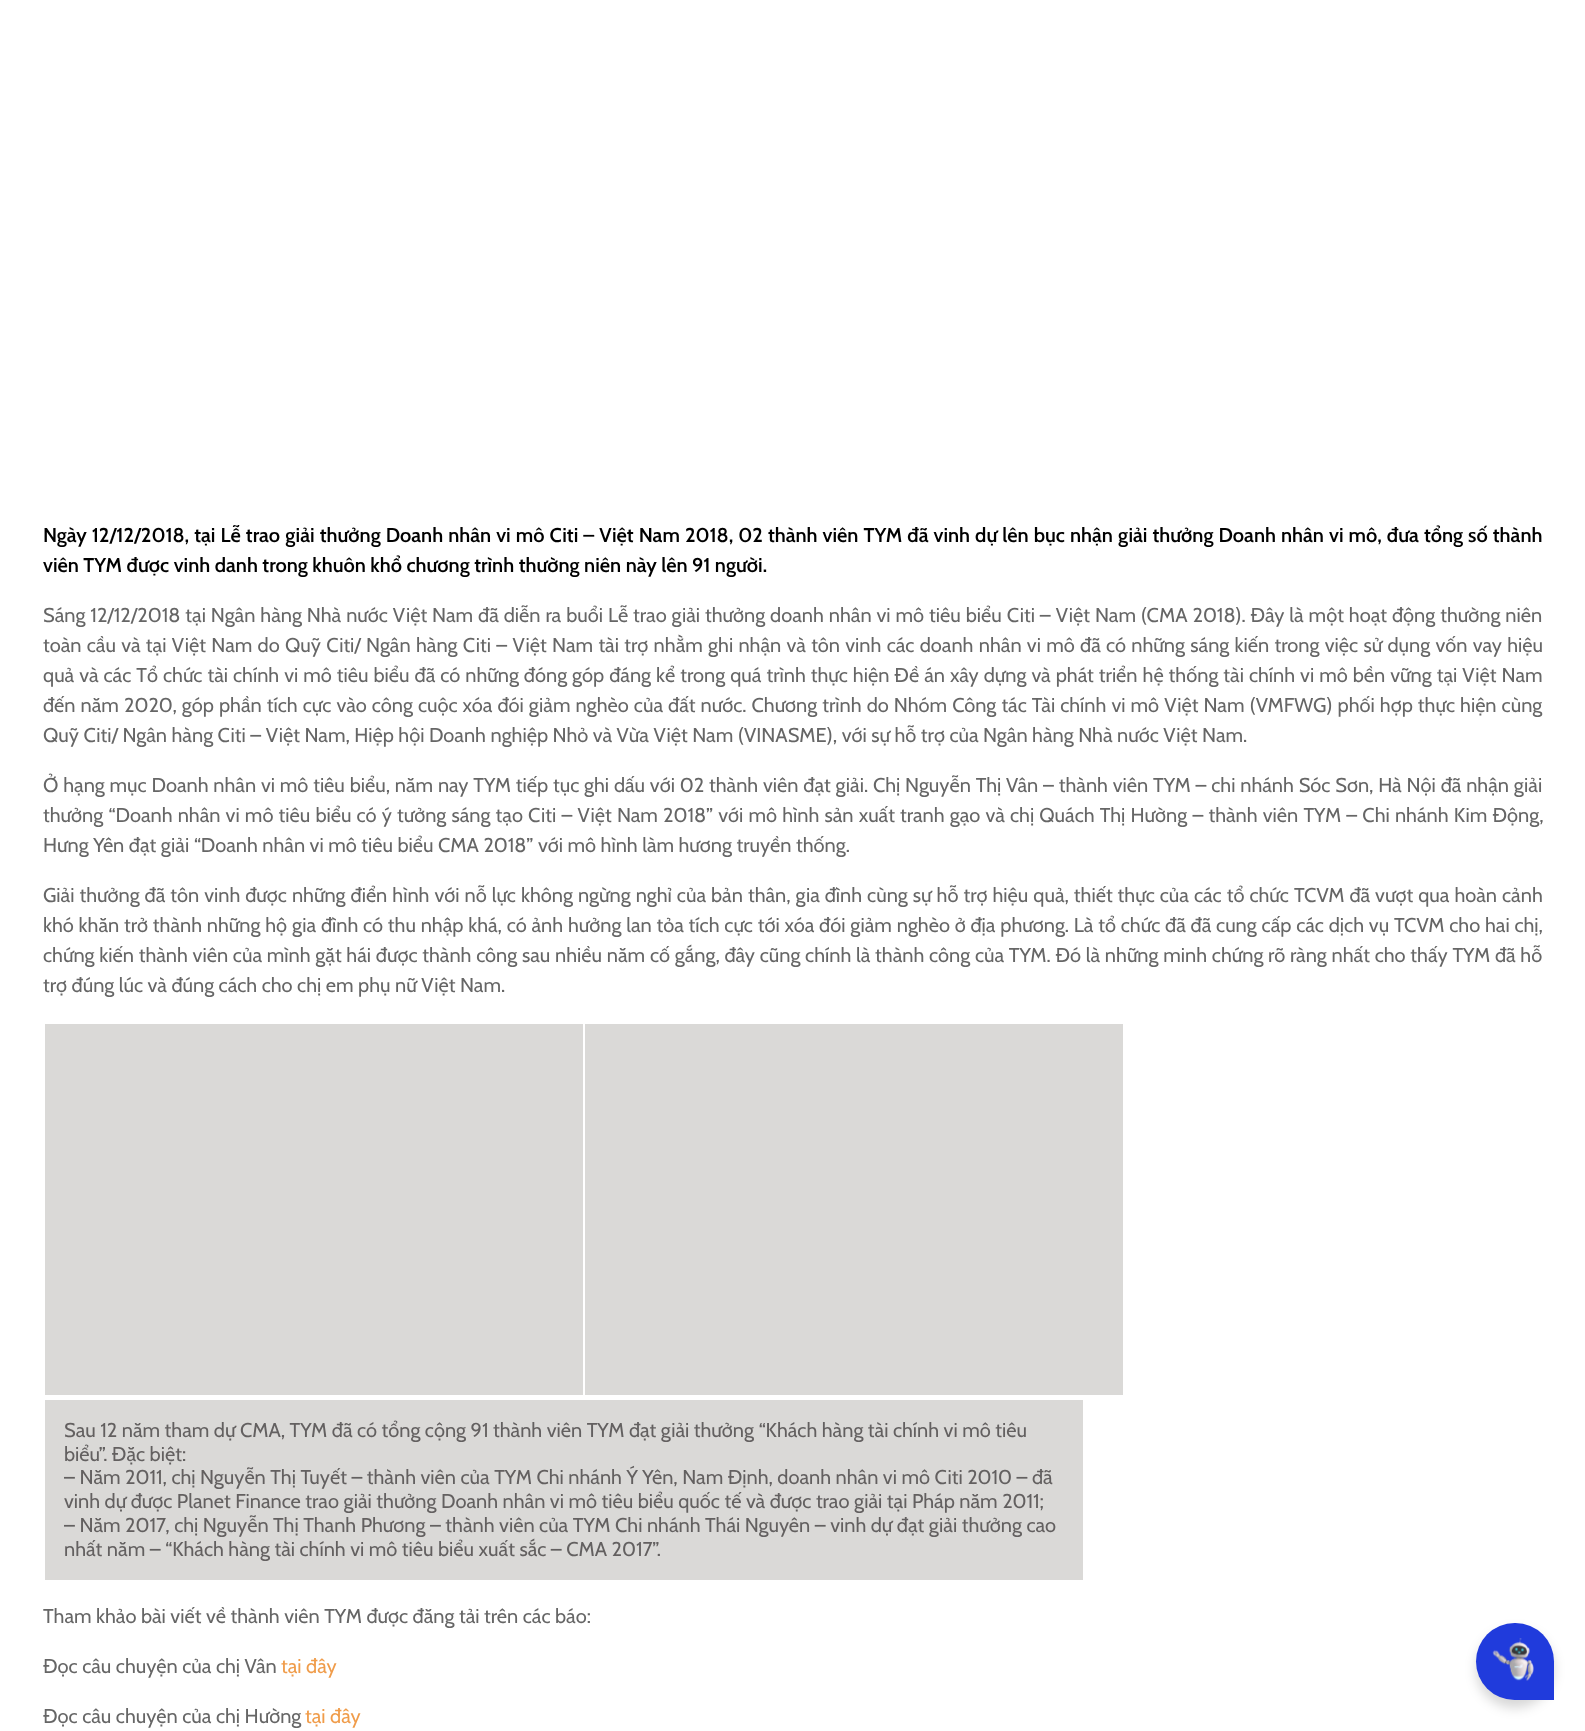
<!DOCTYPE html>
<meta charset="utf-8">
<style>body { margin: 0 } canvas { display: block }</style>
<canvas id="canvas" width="1585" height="1731"></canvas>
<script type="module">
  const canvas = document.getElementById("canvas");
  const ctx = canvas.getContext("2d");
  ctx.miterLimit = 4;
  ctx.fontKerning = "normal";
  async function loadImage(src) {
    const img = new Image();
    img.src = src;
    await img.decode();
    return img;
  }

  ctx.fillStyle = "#ffffff";
  ctx.fillRect(0, 0, 1585, 1731);
  ctx.wordSpacing = "0.55px";
  ctx.font = "600 20px Cabin";
  ctx.fillStyle = "#000000";
  ctx.fillText("Ngày 12/12/2018, tại Lễ trao giải thưởng Doanh nhân vi mô Citi – Việt Nam 2018, 02 thành viên TYM đã vinh dự lên bục nhận giải thưởng Doanh nhân vi mô, đưa tổng số thành", 43, 542);
  ctx.wordSpacing = "0px";
  ctx.fillText("viên TYM được vinh danh trong khuôn khổ chương trình thường niên này lên 91 người.", 43, 572);
  ctx.wordSpacing = "0.45px";
  ctx.font = "20px Cabin";
  ctx.fillStyle = "#666666";
  ctx.fillText("Sáng 12/12/2018 tại Ngân hàng Nhà nước Việt Nam đã diễn ra buổi Lễ trao giải thưởng doanh nhân vi mô tiêu biểu Citi – Việt Nam (CMA 2018). Đây là một hoạt động thường niên", 43, 622);
  ctx.wordSpacing = "0.8px";
  ctx.fillText("toàn cầu và tại Việt Nam do Quỹ Citi/ Ngân hàng Citi – Việt Nam tài trợ nhằm ghi nhận và tôn vinh các doanh nhân vi mô đã có những sáng kiến trong việc sử dụng vốn vay hiệu", 43, 652);
  ctx.wordSpacing = "0.5px";
  ctx.fillText("quả và các Tổ chức tài chính vi mô tiêu biểu đã có những đóng góp đáng kể trong quá trình thực hiện Đề án xây dựng và phát triển hệ thống tài chính vi mô bền vững tại Việt Nam", 43, 682);
  ctx.wordSpacing = "0.55px";
  ctx.fillText("đến năm 2020, góp phần tích cực vào công cuộc xóa đói giảm nghèo của đất nước. Chương trình do Nhóm Công tác Tài chính vi mô Việt Nam (VMFWG) phối hợp thực hiện cùng", 43, 712);
  ctx.wordSpacing = "0px";
  ctx.fillText("Quỹ Citi/ Ngân hàng Citi – Việt Nam, Hiệp hội Doanh nghiệp Nhỏ và Vừa Việt Nam (VINASME), với sự hỗ trợ của Ngân hàng Nhà nước Việt Nam.", 43, 742);
  ctx.wordSpacing = "0.3px";
  ctx.fillText("Ở hạng mục Doanh nhân vi mô tiêu biểu, năm nay TYM tiếp tục ghi dấu với 02 thành viên đạt giải. Chị Nguyễn Thị Vân – thành viên TYM – chi nhánh Sóc Sơn, Hà Nội đã nhận giải", 43, 792);
  ctx.wordSpacing = "0.65px";
  ctx.fillText("thưởng “Doanh nhân vi mô tiêu biểu có ý tưởng sáng tạo Citi – Việt Nam 2018” với mô hình sản xuất tranh gạo và chị Quách Thị Hường – thành viên TYM – Chi nhánh Kim Động,", 43, 822);
  ctx.wordSpacing = "0px";
  ctx.fillText("Hưng Yên đạt giải “Doanh nhân vi mô tiêu biểu CMA 2018” với mô hình làm hương truyền thống.", 43, 852);
  ctx.wordSpacing = "0.5px";
  ctx.fillText("Giải thưởng đã tôn vinh được những điển hình với nỗ lực không ngừng nghỉ của bản thân, gia đình cùng sự hỗ trợ hiệu quả, thiết thực của các tổ chức TCVM đã vượt qua hoàn cảnh", 43, 902);
  ctx.wordSpacing = "0.3px";
  ctx.fillText("khó khăn trở thành những hộ gia đình có thu nhập khá, có ảnh hưởng lan tỏa tích cực tới xóa đói giảm nghèo ở địa phương. Là tổ chức đã đã cung cấp các dịch vụ TCVM cho hai chị,", 43, 932);
  ctx.wordSpacing = "0.25px";
  ctx.fillText("chứng kiến thành viên của mình gặt hái được thành công sau nhiều năm cố gắng, đây cũng chính là thành công của TYM. Đó là những minh chứng rõ ràng nhất cho thấy TYM đã hỗ", 43, 962);
  ctx.wordSpacing = "0px";
  ctx.fillText("trợ đúng lúc và đúng cách cho chị em phụ nữ Việt Nam.", 43, 992);
  ctx.fillStyle = "#dad9d7";
  ctx.fillRect(45, 1024, 538, 371);
  ctx.fillRect(585, 1024, 538, 371);
  ctx.fillRect(45, 1400, 1038, 180);
  ctx.fillStyle = "#636060";
  ctx.fillText("Sau 12 năm tham dự CMA, TYM đã có tổng cộng 91 thành viên TYM đạt giải thưởng “Khách hàng tài chính vi mô tiêu", 64, 1437);
  ctx.fillText("biểu”. Đặc biệt:", 64, 1461);
  ctx.fillText("– Năm 2011, chị Nguyễn Thị Tuyết – thành viên của TYM Chi nhánh Ý Yên, Nam Định, doanh nhân vi mô Citi 2010 – đã", 64, 1484);
  ctx.fillText("vinh dự được Planet Finance trao giải thưởng Doanh nhân vi mô tiêu biểu quốc tế và được trao giải tại Pháp năm 2011;", 64, 1508);
  ctx.fillText("– Năm 2017, chị Nguyễn Thị Thanh Phương – thành viên của TYM Chi nhánh Thái Nguyên – vinh dự đạt giải thưởng cao", 64, 1532);
  ctx.fillText("nhất năm – “Khách hàng tài chính vi mô tiêu biểu xuất sắc – CMA 2017”.", 64, 1556);
  ctx.fillStyle = "#666666";
  ctx.fillText("Tham khảo bài viết về thành viên TYM được đăng tải trên các báo:", 43, 1623);
  ctx.fillText("Đọc câu chuyện của chị Vân", 43, 1673);
  ctx.fillStyle = "#f09c4a";
  ctx.fillText("tại đây", 281, 1673);
  ctx.fillStyle = "#666666";
  ctx.fillText("Đọc câu chuyện của chị Hường", 43, 1723);
  ctx.fillStyle = "#f09c4a";
  ctx.fillText("tại đây", 305, 1723);
  ctx.fillStyle = "rgba(0, 0, 0, 0.16)";
  ctx.filter = "blur(6px)";
  ctx.beginPath();
  ctx.roundRect(1476, 1630, 78, 78, 39);
  ctx.fill();
  ctx.filter = "none";
  ctx.fillStyle = "#203bdc";
  ctx.beginPath();
  ctx.roundRect(1476, 1623, 78, 77, [38.5, 38.5, 0, 38.5]);
  ctx.fill();
  ctx.drawImage(await loadImage("img1.png"), 1492, 1638, 42, 43);
</script>
